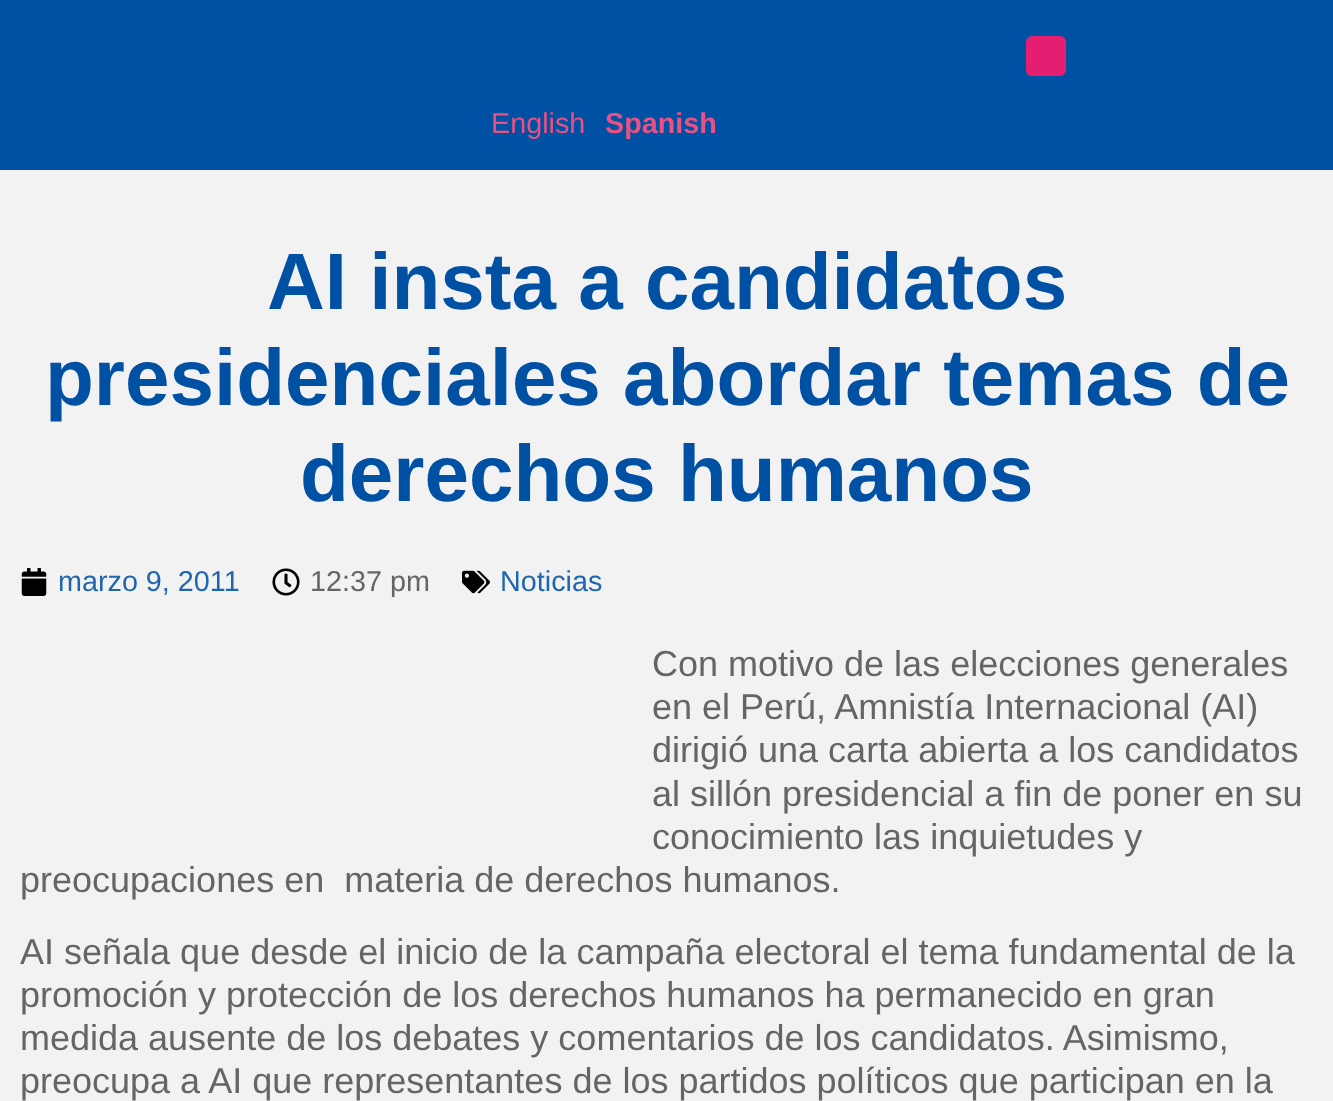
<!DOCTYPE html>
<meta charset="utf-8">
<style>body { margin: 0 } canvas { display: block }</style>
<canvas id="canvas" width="1333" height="1101"></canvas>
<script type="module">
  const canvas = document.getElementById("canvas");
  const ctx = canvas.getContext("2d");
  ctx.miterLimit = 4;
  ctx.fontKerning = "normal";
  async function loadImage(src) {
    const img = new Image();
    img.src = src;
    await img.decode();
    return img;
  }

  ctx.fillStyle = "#f2f2f2";
  ctx.fillRect(0, 0, 1333, 1101);
  ctx.fillStyle = "#0050a4";
  ctx.fillRect(0, 0, 1333, 170);
  ctx.fillStyle = "#e61e71";
  ctx.beginPath();
  ctx.roundRect(1026, 36, 40, 40, 6);
  ctx.fill();
  ctx.font = "28.75px Liberation Sans";
  ctx.fillStyle = "#ea5081";
  ctx.fillText("English", 491, 133);
  ctx.font = "bold 28.75px Liberation Sans";
  ctx.fillText("Spanish", 605, 133);
  ctx.font = "bold 80px Liberation Sans";
  ctx.fillStyle = "#0050a4";
  ctx.fillText("AI insta a candidatos", 267, 309);
  ctx.fillText("presidenciales abordar temas de", 45, 405);
  ctx.fillText("derechos humanos", 300, 501);
  ctx.drawImage(await loadImage("img1.png"), 21, 568, 26, 28);
  ctx.font = "28.75px Liberation Sans";
  ctx.fillStyle = "#1f66b1";
  ctx.fillText("marzo 9, 2011", 58, 591);
  ctx.drawImage(await loadImage("img2.png"), 272, 568, 28, 28);
  ctx.fillStyle = "#656565";
  ctx.fillText("12:37 pm", 310, 591);
  ctx.drawImage(await loadImage("img3.png"), 462, 570, 28, 24);
  ctx.fillStyle = "#1f66b1";
  ctx.fillText("Noticias", 500, 591);
  ctx.font = "36px Liberation Sans";
  ctx.fillStyle = "#656565";
  ctx.fillText("Con motivo de las elecciones generales", 652, 676);
  ctx.fillText("en el Perú, Amnistía Internacional (AI)", 652, 719);
  ctx.fillText("dirigió una carta abierta a los candidatos", 652, 762);
  ctx.fillText("al sillón presidencial a fin de poner en su", 652, 806);
  ctx.fillText("conocimiento las inquietudes y", 652, 849);
  ctx.fillText("preocupaciones en  materia de derechos humanos.", 20, 892);
  ctx.fillText("AI señala que desde el inicio de la campaña electoral el tema fundamental de la", 20, 964);
  ctx.fillText("promoción y protección de los derechos humanos ha permanecido en gran", 20, 1007);
  ctx.fillText("medida ausente de los debates y comentarios de los candidatos. Asimismo,", 20, 1050);
  ctx.fillText("preocupa a AI que representantes de los partidos políticos que participan en la", 20, 1093);
</script>
